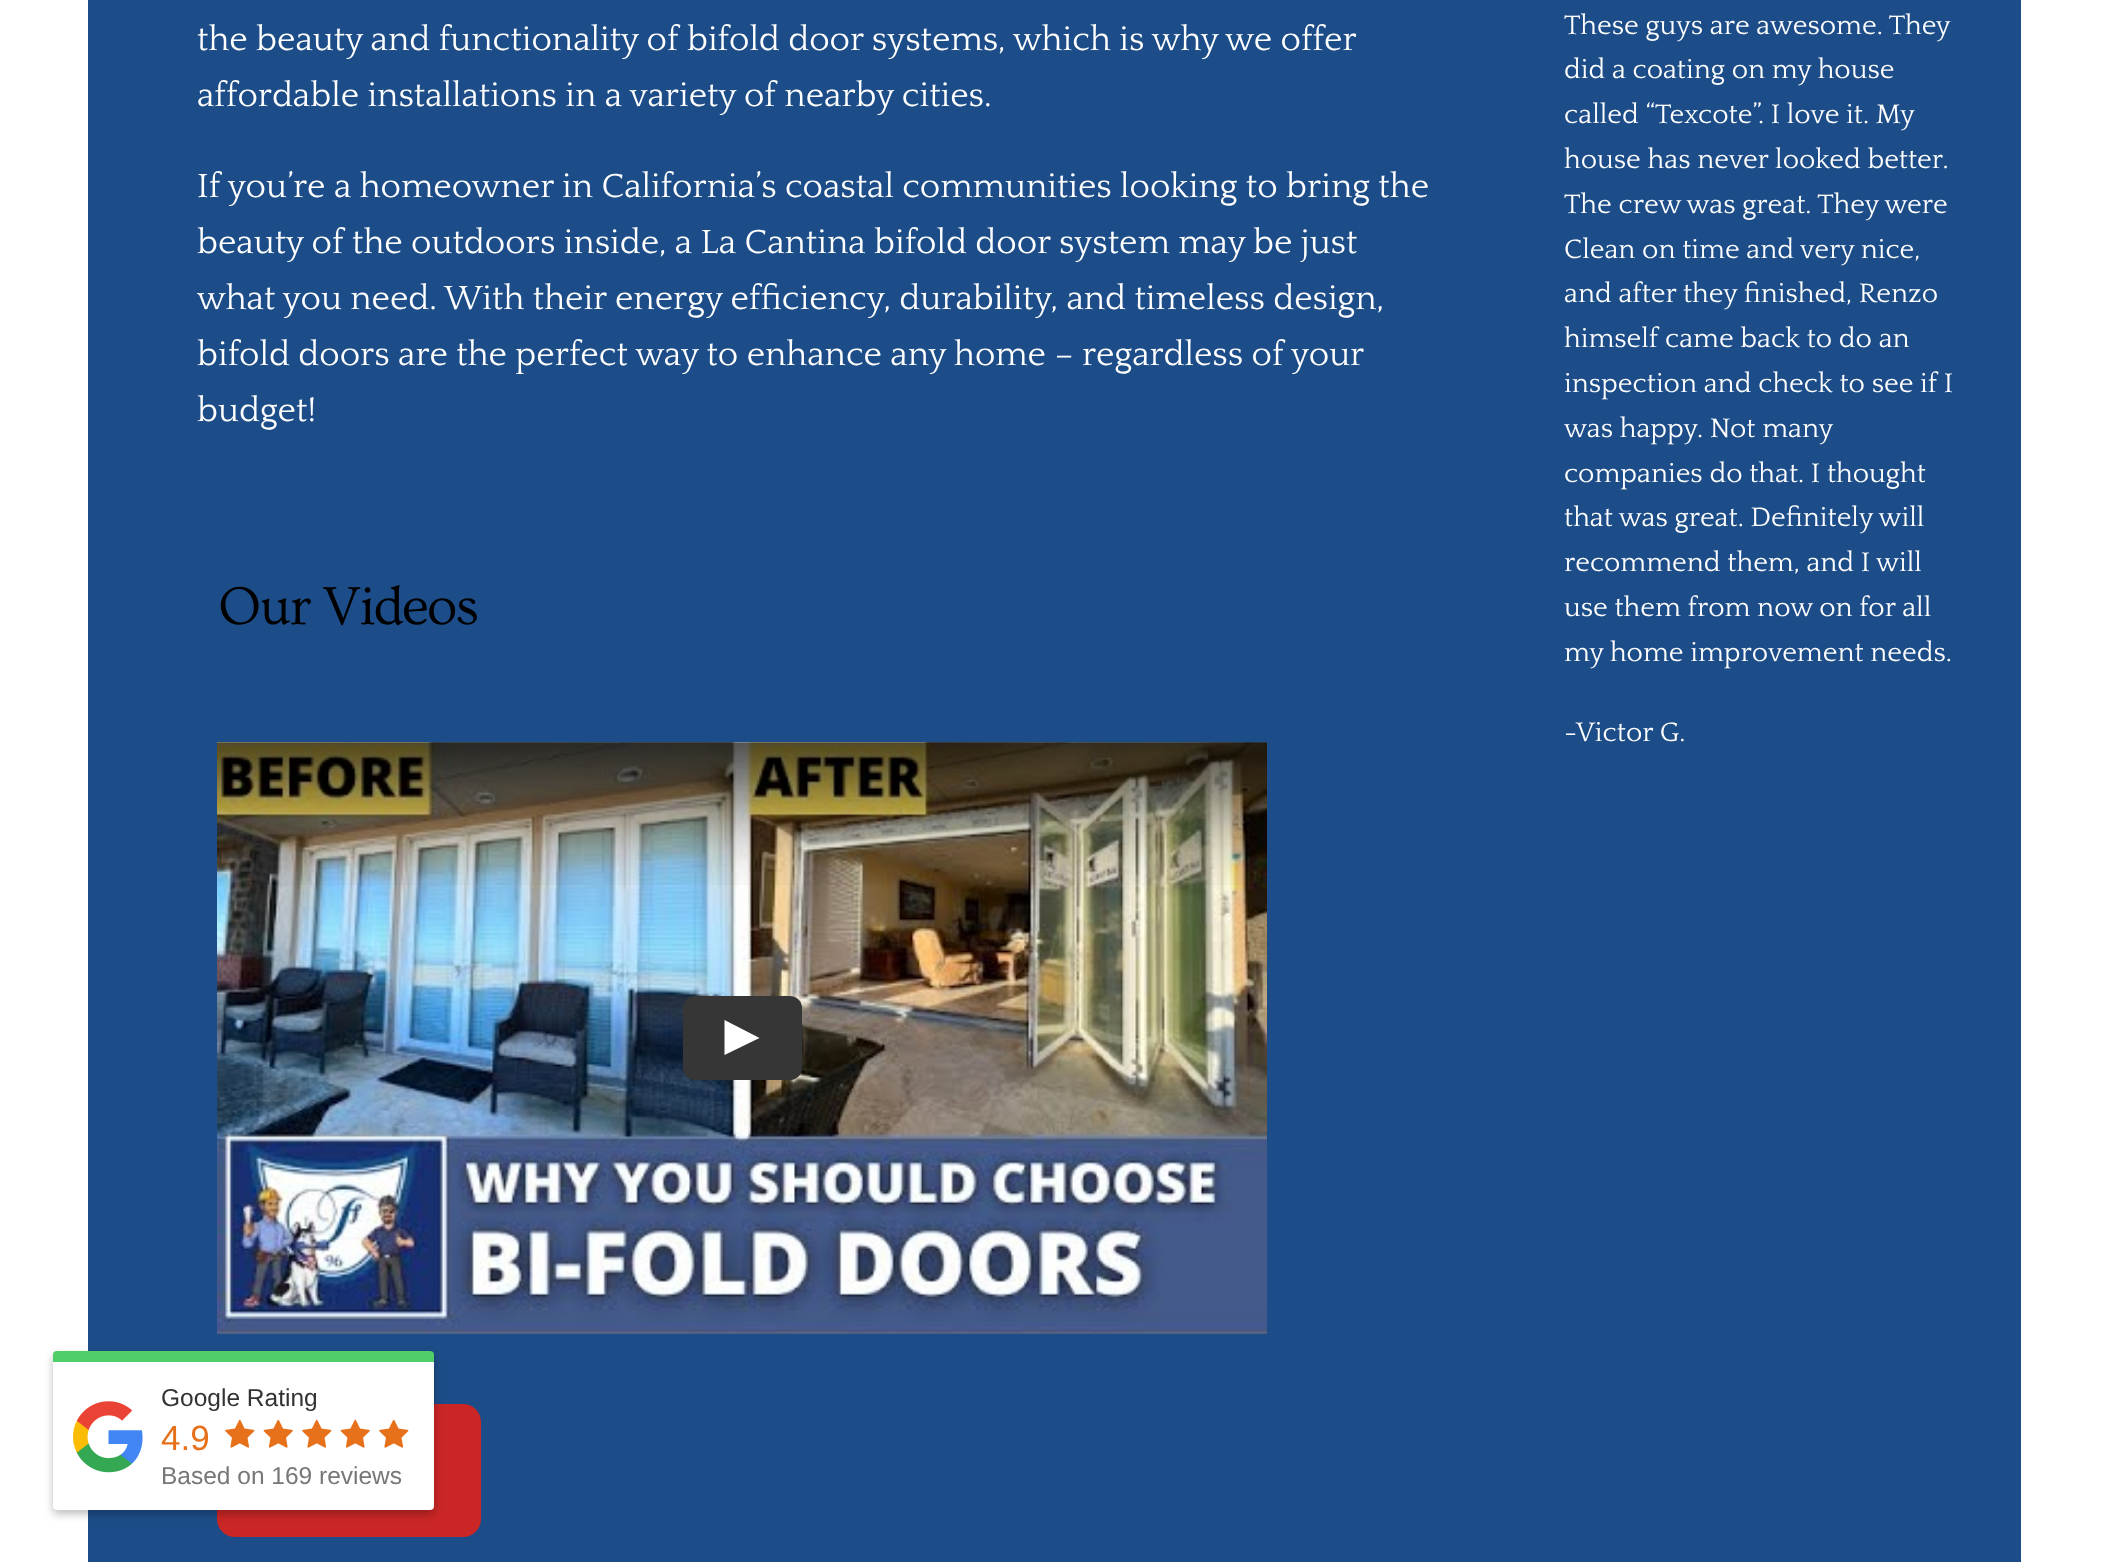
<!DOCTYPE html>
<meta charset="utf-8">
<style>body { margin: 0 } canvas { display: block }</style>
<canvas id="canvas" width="2108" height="1562"></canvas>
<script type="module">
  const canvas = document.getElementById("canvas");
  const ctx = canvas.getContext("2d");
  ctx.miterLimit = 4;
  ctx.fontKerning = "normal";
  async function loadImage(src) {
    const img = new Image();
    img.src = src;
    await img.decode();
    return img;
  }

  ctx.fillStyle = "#ffffff";
  ctx.fillRect(0, 0, 2108, 1562);
  ctx.fillStyle = "#1d4d88";
  ctx.fillRect(88, 0, 1933, 1562);
  ctx.font = "35px Quattrocento";
  ctx.fillStyle = "#ffffff";
  ctx.fillText("the beauty and functionality of bifold door systems, which is why we offer", 197, 50);
  ctx.fillText("affordable installations in a variety of nearby cities.", 197, 106);
  ctx.fillText("If you’re a homeowner in California’s coastal communities looking to bring the", 197, 197);
  ctx.fillText("beauty of the outdoors inside, a La Cantina bifold door system may be just", 197, 253);
  ctx.fillText("what you need. With their energy efficiency, durability, and timeless design,", 197, 309);
  ctx.fillText("bifold doors are the perfect way to enhance any home – regardless of your", 197, 365);
  ctx.fillText("budget!", 197, 421);
  ctx.letterSpacing = "-1.75px";
  ctx.font = "56px Ovo";
  ctx.fillStyle = "#000000";
  ctx.fillText("Our Videos", 218, 624);
  ctx.drawImage(await loadImage("img1.png"), 217, 742, 1050, 592);
  ctx.drawImage(await loadImage("img2.png"), 217, 742, 1050, 143);
  ctx.fillStyle = "#363636";
  ctx.beginPath();
  ctx.roundRect(683, 996, 119, 84, 12);
  ctx.fill();
  ctx.fillStyle = "#ffffff";
  ctx.beginPath();
  ctx.moveTo(724.5, 1055);
  ctx.lineTo(724.5, 1020);
  ctx.lineTo(759.5, 1038);
  ctx.closePath();
  ctx.fill();
  ctx.fillStyle = "#ca2626";
  ctx.beginPath();
  ctx.roundRect(217, 1404, 264, 133, 18);
  ctx.fill();
  ctx.letterSpacing = "0px";
  ctx.font = "28px Quattrocento";
  ctx.fillStyle = "#ffffff";
  ctx.fillText("These guys are awesome. They", 1564, 34);
  ctx.fillText("did a coating on my house", 1564, 78);
  ctx.fillText("called “Texcote”. I love it. My", 1564, 123);
  ctx.fillText("house has never looked better.", 1564, 168);
  ctx.fillText("The crew was great. They were", 1564, 213);
  ctx.fillText("Clean on time and very nice,", 1564, 258);
  ctx.fillText("and after they finished, Renzo", 1564, 302);
  ctx.fillText("himself came back to do an", 1564, 347);
  ctx.fillText("inspection and check to see if I", 1564, 392);
  ctx.fillText("was happy. Not many", 1564, 437);
  ctx.fillText("companies do that. I thought", 1564, 482);
  ctx.fillText("that was great. Definitely will", 1564, 526);
  ctx.fillText("recommend them, and I will", 1564, 571);
  ctx.fillText("use them from now on for all", 1564, 616);
  ctx.fillText("my home improvement needs.", 1564, 661);
  ctx.fillText("-Victor G.", 1564, 741);
  ctx.fillStyle = "rgba(0, 0, 0, 0.26)";
  ctx.filter = "blur(4.5px)";
  ctx.beginPath();
  ctx.roundRect(53, 1355, 381, 159, 4);
  ctx.fill();
  ctx.filter = "none";
  ctx.fillStyle = "#4fce6a";
  ctx.beginPath();
  ctx.roundRect(53, 1351, 381, 11, [4, 4, 0, 0]);
  ctx.fill();
  ctx.fillStyle = "#ffffff";
  ctx.beginPath();
  ctx.roundRect(53, 1362, 381, 148, [0, 0, 4, 4]);
  ctx.fill();
  ctx.drawImage(await loadImage("img3.png"), 73, 1401, 70, 72);
  ctx.font = "24.5px Liberation Sans";
  ctx.fillStyle = "#333333";
  ctx.fillText("Google Rating", 161, 1406);
  ctx.font = "35px Liberation Sans";
  ctx.fillStyle = "#e7711b";
  ctx.fillText("4.9", 161, 1450);
  ctx.drawImage(await loadImage("img4.png"), 225, 1419, 30, 29);
  ctx.drawImage(await loadImage("img5.png"), 263, 1419, 30, 29);
  ctx.drawImage(await loadImage("img4.png"), 302, 1419, 30, 29);
  ctx.drawImage(await loadImage("img5.png"), 340, 1419, 30, 29);
  ctx.drawImage(await loadImage("img4.png"), 379, 1419, 30, 29);
  ctx.font = "24.5px Liberation Sans";
  ctx.fillStyle = "#777777";
  ctx.fillText("Based on 169 reviews", 161, 1484);
</script>
